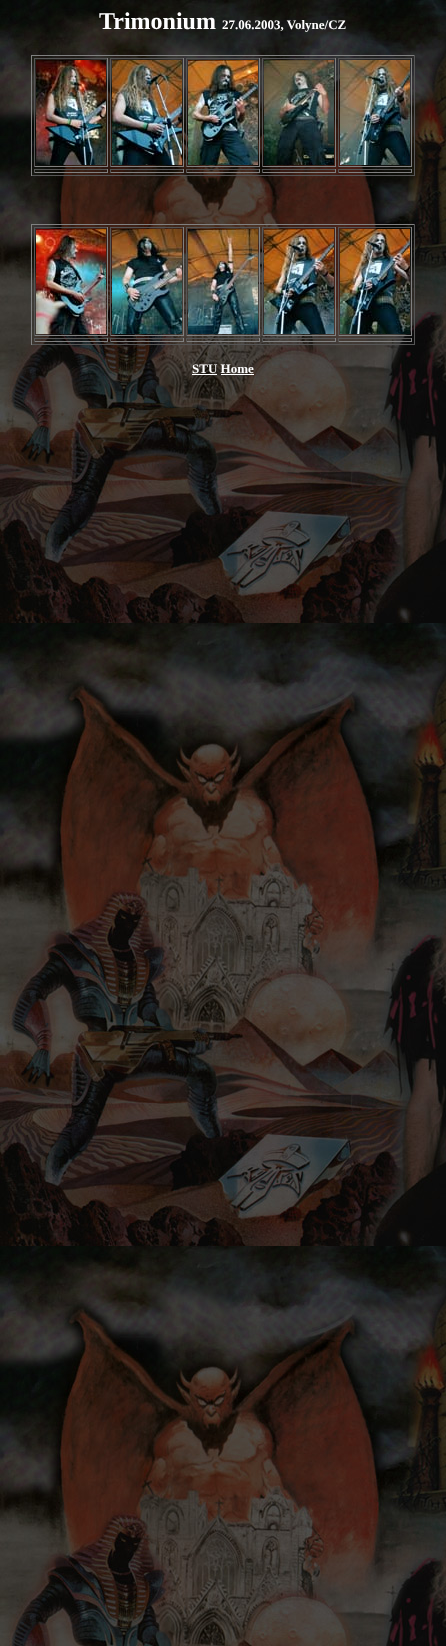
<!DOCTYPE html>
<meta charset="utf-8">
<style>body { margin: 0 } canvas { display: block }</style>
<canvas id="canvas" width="446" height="1646"></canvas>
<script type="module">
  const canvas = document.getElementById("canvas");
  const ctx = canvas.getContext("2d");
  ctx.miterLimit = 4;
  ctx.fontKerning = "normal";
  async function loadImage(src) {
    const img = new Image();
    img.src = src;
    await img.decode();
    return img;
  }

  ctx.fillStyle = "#ffffff";
  ctx.fillRect(0, 0, 446, 1646);
  ctx.drawImage(await loadImage("img1.png"), 0, 0, 446, 1646);
  ctx.font = "bold 24px Liberation Serif";
  ctx.fillText("Trimonium", 99, 29);
  ctx.font = "bold 13px Liberation Serif";
  ctx.fillText("27.06.2003, Volyne/CZ", 222, 29);
  ctx.fillStyle = "#808080";
  ctx.fillRect(31, 55, 384, 1);
  ctx.fillStyle = "#555555";
  ctx.fillRect(414, 55, 1, 121);
  ctx.fillRect(31, 175, 384, 1);
  ctx.fillStyle = "#808080";
  ctx.fillRect(31, 55, 1, 121);
  ctx.fillStyle = "#555555";
  ctx.fillRect(34, 58, 74, 1);
  ctx.fillStyle = "#808080";
  ctx.fillRect(107, 58, 1, 109);
  ctx.fillRect(34, 166, 74, 1);
  ctx.fillStyle = "#555555";
  ctx.fillRect(34, 58, 1, 109);
  ctx.drawImage(await loadImage("img2.png"), 36, 60, 70, 105);
  ctx.fillRect(110, 58, 74, 1);
  ctx.fillStyle = "#808080";
  ctx.fillRect(183, 58, 1, 109);
  ctx.fillRect(110, 166, 74, 1);
  ctx.fillStyle = "#555555";
  ctx.fillRect(110, 58, 1, 109);
  ctx.drawImage(await loadImage("img3.png"), 112, 60, 70, 105);
  ctx.fillRect(186, 58, 74, 1);
  ctx.fillStyle = "#808080";
  ctx.fillRect(259, 58, 1, 109);
  ctx.fillRect(186, 166, 74, 1);
  ctx.fillStyle = "#555555";
  ctx.fillRect(186, 58, 1, 109);
  ctx.drawImage(await loadImage("img4.png"), 188, 60, 70, 105);
  ctx.fillRect(262, 58, 74, 1);
  ctx.fillStyle = "#808080";
  ctx.fillRect(335, 58, 1, 109);
  ctx.fillRect(262, 166, 74, 1);
  ctx.fillStyle = "#555555";
  ctx.fillRect(262, 58, 1, 109);
  ctx.drawImage(await loadImage("img5.png"), 264, 60, 70, 105);
  ctx.fillRect(338, 58, 74, 1);
  ctx.fillStyle = "#808080";
  ctx.fillRect(411, 58, 1, 109);
  ctx.fillRect(338, 166, 74, 1);
  ctx.fillStyle = "#555555";
  ctx.fillRect(338, 58, 1, 109);
  ctx.drawImage(await loadImage("img6.png"), 340, 60, 70, 105);
  ctx.fillRect(34, 169, 74, 1);
  ctx.fillStyle = "#808080";
  ctx.fillRect(107, 169, 1, 4);
  ctx.fillRect(34, 172, 74, 1);
  ctx.fillStyle = "#555555";
  ctx.fillRect(34, 169, 1, 4);
  ctx.fillRect(110, 169, 74, 1);
  ctx.fillStyle = "#808080";
  ctx.fillRect(183, 169, 1, 4);
  ctx.fillRect(110, 172, 74, 1);
  ctx.fillStyle = "#555555";
  ctx.fillRect(110, 169, 1, 4);
  ctx.fillRect(186, 169, 74, 1);
  ctx.fillStyle = "#808080";
  ctx.fillRect(259, 169, 1, 4);
  ctx.fillRect(186, 172, 74, 1);
  ctx.fillStyle = "#555555";
  ctx.fillRect(186, 169, 1, 4);
  ctx.fillRect(262, 169, 74, 1);
  ctx.fillStyle = "#808080";
  ctx.fillRect(335, 169, 1, 4);
  ctx.fillRect(262, 172, 74, 1);
  ctx.fillStyle = "#555555";
  ctx.fillRect(262, 169, 1, 4);
  ctx.fillRect(338, 169, 74, 1);
  ctx.fillStyle = "#808080";
  ctx.fillRect(411, 169, 1, 4);
  ctx.fillRect(338, 172, 74, 1);
  ctx.fillStyle = "#555555";
  ctx.fillRect(338, 169, 1, 4);
  ctx.fillStyle = "#808080";
  ctx.fillRect(31, 224, 384, 1);
  ctx.fillStyle = "#555555";
  ctx.fillRect(414, 224, 1, 121);
  ctx.fillRect(31, 344, 384, 1);
  ctx.fillStyle = "#808080";
  ctx.fillRect(31, 224, 1, 121);
  ctx.fillStyle = "#555555";
  ctx.fillRect(34, 227, 74, 1);
  ctx.fillStyle = "#808080";
  ctx.fillRect(107, 227, 1, 109);
  ctx.fillRect(34, 335, 74, 1);
  ctx.fillStyle = "#555555";
  ctx.fillRect(34, 227, 1, 109);
  ctx.drawImage(await loadImage("img7.png"), 36, 229, 70, 105);
  ctx.fillRect(110, 227, 74, 1);
  ctx.fillStyle = "#808080";
  ctx.fillRect(183, 227, 1, 109);
  ctx.fillRect(110, 335, 74, 1);
  ctx.fillStyle = "#555555";
  ctx.fillRect(110, 227, 1, 109);
  ctx.drawImage(await loadImage("img8.png"), 112, 229, 70, 105);
  ctx.fillRect(186, 227, 74, 1);
  ctx.fillStyle = "#808080";
  ctx.fillRect(259, 227, 1, 109);
  ctx.fillRect(186, 335, 74, 1);
  ctx.fillStyle = "#555555";
  ctx.fillRect(186, 227, 1, 109);
  ctx.drawImage(await loadImage("img9.png"), 188, 229, 70, 105);
  ctx.fillRect(262, 227, 74, 1);
  ctx.fillStyle = "#808080";
  ctx.fillRect(335, 227, 1, 109);
  ctx.fillRect(262, 335, 74, 1);
  ctx.fillStyle = "#555555";
  ctx.fillRect(262, 227, 1, 109);
  ctx.drawImage(await loadImage("img10.png"), 264, 229, 70, 105);
  ctx.fillRect(338, 227, 74, 1);
  ctx.fillStyle = "#808080";
  ctx.fillRect(411, 227, 1, 109);
  ctx.fillRect(338, 335, 74, 1);
  ctx.fillStyle = "#555555";
  ctx.fillRect(338, 227, 1, 109);
  ctx.drawImage(await loadImage("img11.png"), 340, 229, 70, 105);
  ctx.fillRect(34, 338, 74, 1);
  ctx.fillStyle = "#808080";
  ctx.fillRect(107, 338, 1, 4);
  ctx.fillRect(34, 341, 74, 1);
  ctx.fillStyle = "#555555";
  ctx.fillRect(34, 338, 1, 4);
  ctx.fillRect(110, 338, 74, 1);
  ctx.fillStyle = "#808080";
  ctx.fillRect(183, 338, 1, 4);
  ctx.fillRect(110, 341, 74, 1);
  ctx.fillStyle = "#555555";
  ctx.fillRect(110, 338, 1, 4);
  ctx.fillRect(186, 338, 74, 1);
  ctx.fillStyle = "#808080";
  ctx.fillRect(259, 338, 1, 4);
  ctx.fillRect(186, 341, 74, 1);
  ctx.fillStyle = "#555555";
  ctx.fillRect(186, 338, 1, 4);
  ctx.fillRect(262, 338, 74, 1);
  ctx.fillStyle = "#808080";
  ctx.fillRect(335, 338, 1, 4);
  ctx.fillRect(262, 341, 74, 1);
  ctx.fillStyle = "#555555";
  ctx.fillRect(262, 338, 1, 4);
  ctx.fillRect(338, 338, 74, 1);
  ctx.fillStyle = "#808080";
  ctx.fillRect(411, 338, 1, 4);
  ctx.fillRect(338, 341, 74, 1);
  ctx.fillStyle = "#555555";
  ctx.fillRect(338, 338, 1, 4);
  ctx.fillStyle = "#ffffff";
  ctx.fillText("STU Home", 192, 373);
  ctx.fillRect(192, 374, 25, 1);
  ctx.fillRect(221, 374, 33, 1);
</script>
